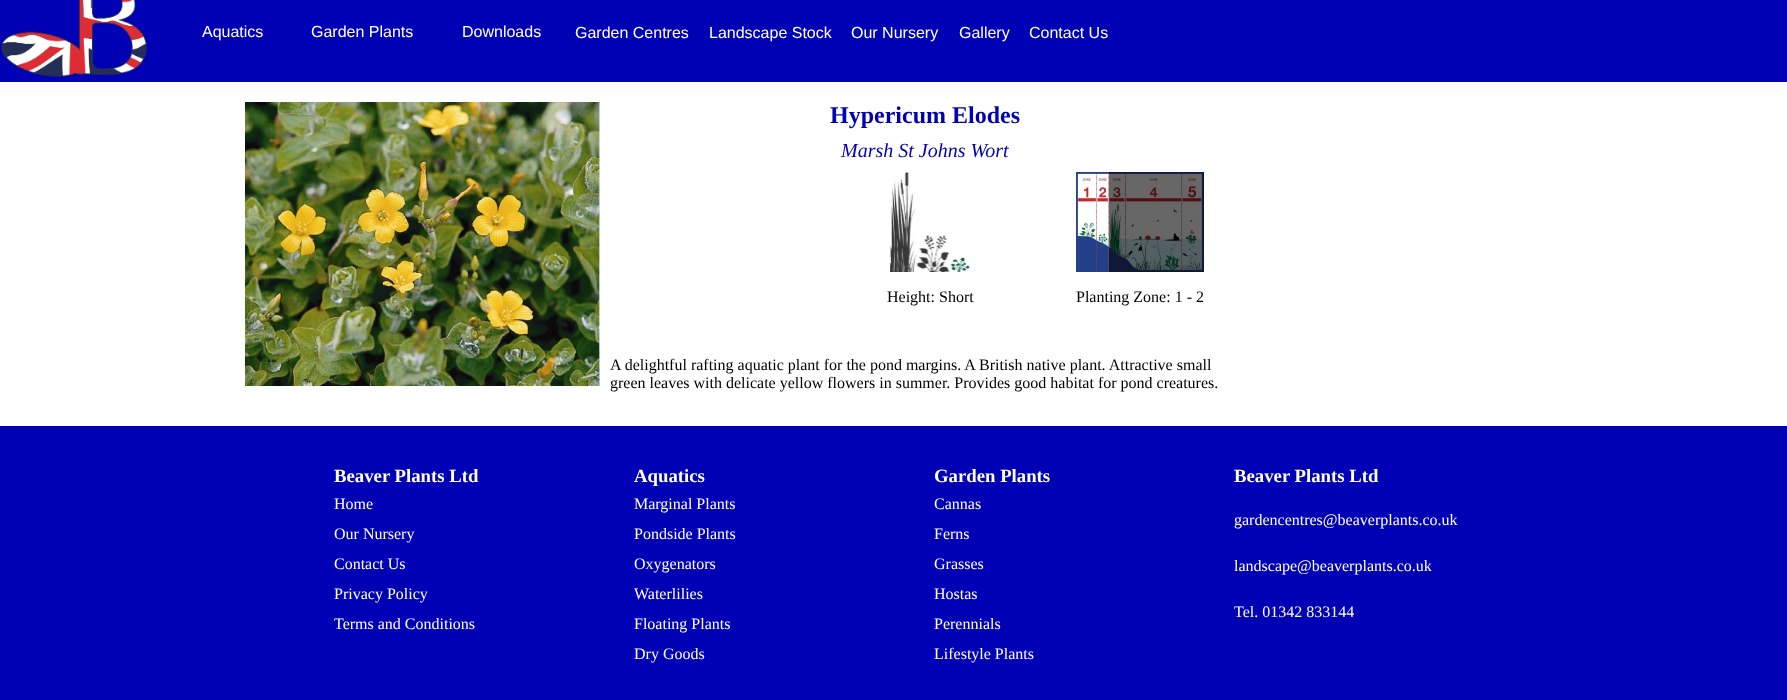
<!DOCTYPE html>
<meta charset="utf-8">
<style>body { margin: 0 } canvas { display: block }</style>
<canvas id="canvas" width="1787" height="700"></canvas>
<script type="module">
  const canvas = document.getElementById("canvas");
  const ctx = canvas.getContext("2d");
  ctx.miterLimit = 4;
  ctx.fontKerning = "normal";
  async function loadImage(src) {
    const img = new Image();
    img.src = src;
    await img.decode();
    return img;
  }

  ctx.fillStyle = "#ffffff";
  ctx.fillRect(0, 0, 1787, 700);
  ctx.fillStyle = "#0000b4";
  ctx.fillRect(0, 0, 1787, 82);
  ctx.drawImage(await loadImage("img1.png"), 0, 0, 148, 77);
  ctx.font = "16px Liberation Sans";
  ctx.fillStyle = "#ffffff";
  ctx.fillText("Aquatics", 202, 37);
  ctx.fillText("Garden Plants", 311, 37);
  ctx.fillText("Downloads", 462, 37);
  ctx.fillText("Garden Centres", 575, 38);
  ctx.fillText("Landscape Stock", 709, 38);
  ctx.fillText("Our Nursery", 851, 38);
  ctx.fillText("Gallery", 959, 38);
  ctx.fillText("Contact Us", 1029, 38);
  ctx.drawImage(await loadImage("img2.png"), 245, 102, 355, 284);
  ctx.font = "bold 24px Liberation Serif";
  ctx.fillStyle = "#0000b4";
  ctx.fillText("Hypericum Elodes", 830, 123);
  ctx.font = "italic 20px Liberation Serif";
  ctx.fillText("Marsh St Johns Wort", 841, 157);
  ctx.drawImage(await loadImage("img3.png"), 890, 172, 80, 100);
  ctx.font = "16px Liberation Serif";
  ctx.fillStyle = "#000000";
  ctx.fillText("Height: Short", 887, 302);
  ctx.drawImage(await loadImage("img4.png"), 1076, 172, 128, 100);
  ctx.fillText("Planting Zone: 1 - 2", 1076, 302);
  ctx.fillText("A delightful rafting aquatic plant for the pond margins. A British native plant. Attractive small", 610, 370);
  ctx.fillText("green leaves with delicate yellow flowers in summer. Provides good habitat for pond creatures.", 610, 388);
  ctx.fillStyle = "#0000b4";
  ctx.fillRect(0, 426, 1787, 274);
  ctx.font = "bold 18.75px Liberation Serif";
  ctx.fillStyle = "#ffffff";
  ctx.fillText("Beaver Plants Ltd", 334, 482);
  ctx.font = "16px Liberation Serif";
  ctx.fillText("Home", 334, 509);
  ctx.fillText("Our Nursery", 334, 539);
  ctx.fillText("Contact Us", 334, 569);
  ctx.fillText("Privacy Policy", 334, 599);
  ctx.fillText("Terms and Conditions", 334, 629);
  ctx.font = "bold 18.75px Liberation Serif";
  ctx.fillText("Aquatics", 634, 482);
  ctx.font = "16px Liberation Serif";
  ctx.fillText("Marginal Plants", 634, 509);
  ctx.fillText("Pondside Plants", 634, 539);
  ctx.fillText("Oxygenators", 634, 569);
  ctx.fillText("Waterlilies", 634, 599);
  ctx.fillText("Floating Plants", 634, 629);
  ctx.fillText("Dry Goods", 634, 659);
  ctx.font = "bold 18.75px Liberation Serif";
  ctx.fillText("Garden Plants", 934, 482);
  ctx.font = "16px Liberation Serif";
  ctx.fillText("Cannas", 934, 509);
  ctx.fillText("Ferns", 934, 539);
  ctx.fillText("Grasses", 934, 569);
  ctx.fillText("Hostas", 934, 599);
  ctx.fillText("Perennials", 934, 629);
  ctx.fillText("Lifestyle Plants", 934, 659);
  ctx.font = "bold 18.75px Liberation Serif";
  ctx.fillText("Beaver Plants Ltd", 1234, 482);
  ctx.font = "16px Liberation Serif";
  ctx.fillText("gardencentres@beaverplants.co.uk", 1234, 525);
  ctx.fillText("landscape@beaverplants.co.uk", 1234, 571);
  ctx.fillText("Tel. 01342 833144", 1234, 617);
</script>
